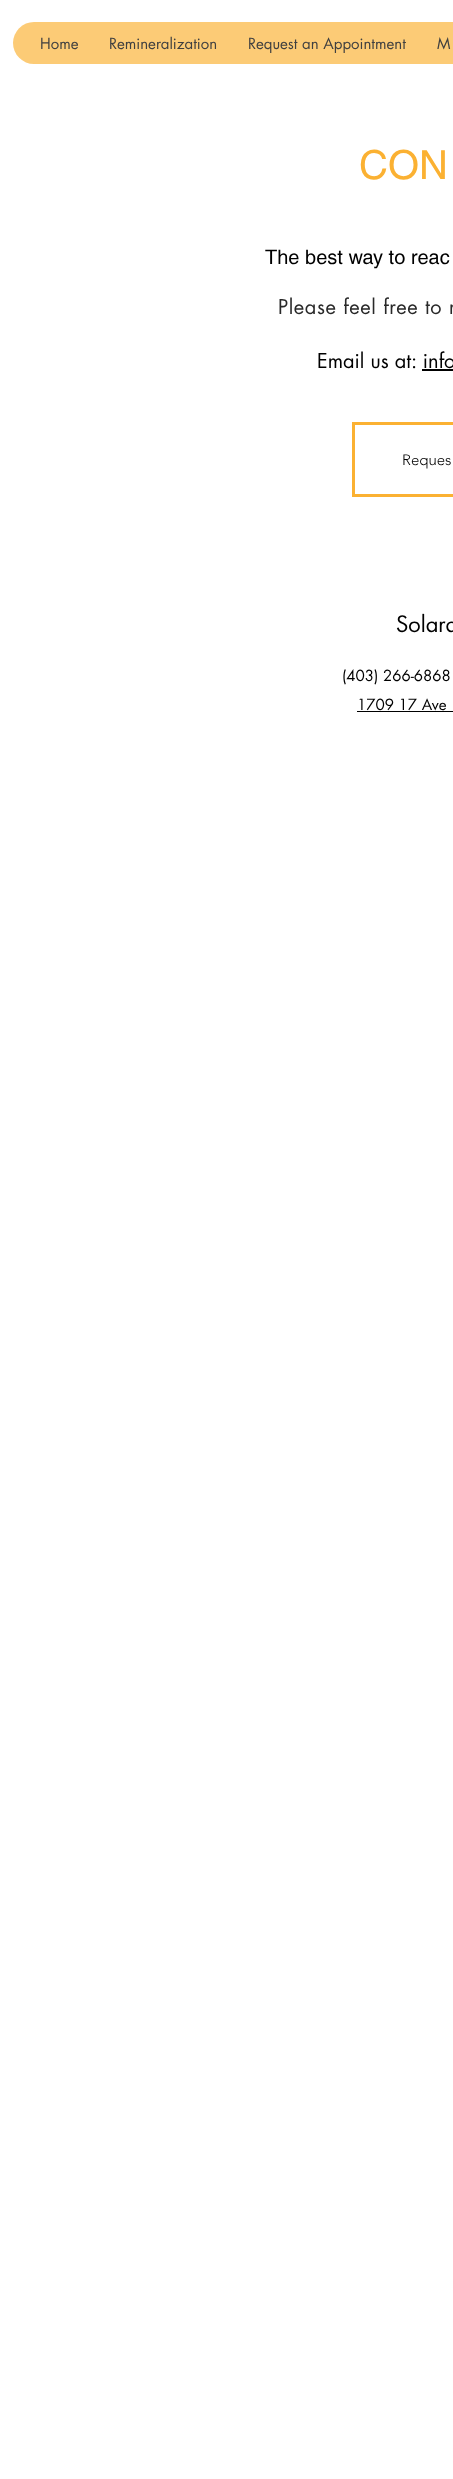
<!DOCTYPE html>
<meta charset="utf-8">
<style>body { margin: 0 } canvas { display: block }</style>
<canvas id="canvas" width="453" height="2479"></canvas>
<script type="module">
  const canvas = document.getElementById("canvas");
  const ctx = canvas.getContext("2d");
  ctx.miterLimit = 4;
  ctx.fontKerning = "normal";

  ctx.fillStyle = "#ffffff";
  ctx.fillRect(0, 0, 453, 2479);
  ctx.fillStyle = "#fccb76";
  ctx.beginPath();
  ctx.roundRect(13, 22, 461, 42, 21);
  ctx.fill();
  ctx.font = "15px futura";
  ctx.fillStyle = "#404040";
  ctx.fillText("Home", 40, 49);
  ctx.fillText("Remineralization", 109, 49);
  ctx.fillText("Request an Appointment", 248, 49);
  ctx.fillText("M", 437, 49);
  ctx.font = "40px helvetica";
  ctx.fillStyle = "#fbb132";
  ctx.fillText("CON", 359, 179);
  ctx.font = "20px helvetica";
  ctx.fillStyle = "#000000";
  ctx.fillText("The best way to reac", 265, 264);
  ctx.letterSpacing = "0.6px";
  ctx.font = "20px futura";
  ctx.fillStyle = "#292929";
  ctx.fillText("Please feel free to r", 278, 314);
  ctx.letterSpacing = "0px";
  ctx.fillStyle = "#000000";
  ctx.fillText("Email us at: info", 317, 368);
  ctx.fillRect(422, 369, 31, 2);
  ctx.strokeStyle = "#fbb132";
  ctx.lineWidth = 3;
  ctx.strokeRect(353.5, 423.5, 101, 72);
  ctx.font = "300 15px 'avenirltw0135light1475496'";
  ctx.fillText("Reques", 402, 465);
  ctx.font = "22px futura";
  ctx.fillText("Solara", 396, 632);
  ctx.font = "15px futura";
  ctx.fillText("(403) 266-6868", 342, 681);
  ctx.fillText("1709 17 Ave", 357, 710);
  ctx.fillRect(357, 711, 96, 1);
</script>
